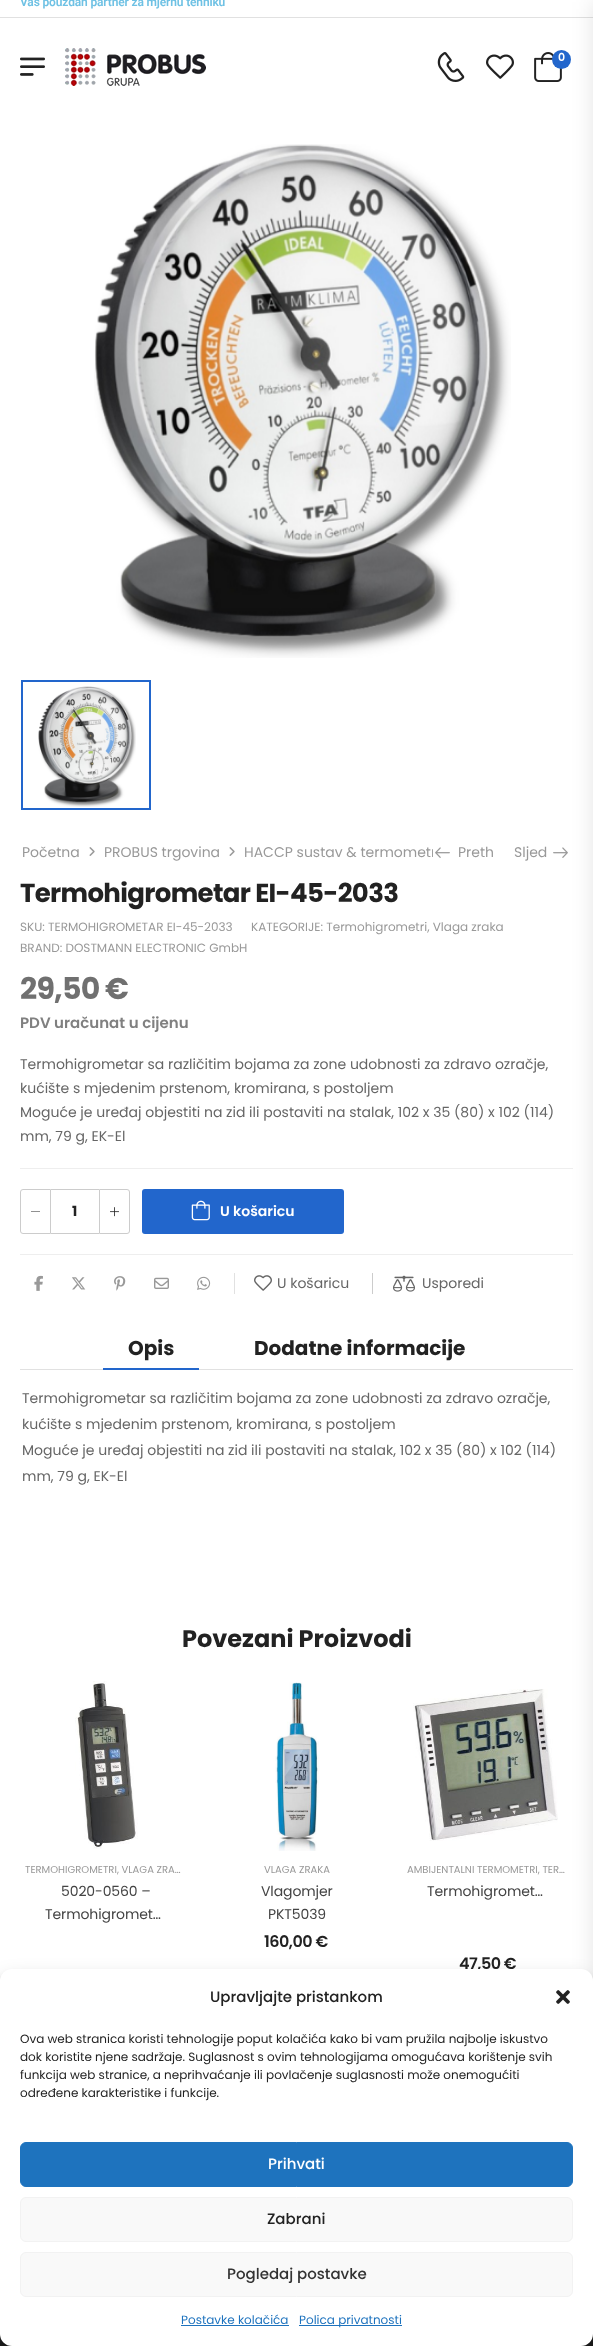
<!DOCTYPE html>
<meta charset="utf-8">
<style>body { margin: 0 } canvas { display: block }</style>
<canvas id="canvas" width="593" height="2346"></canvas>
<script type="module">
  const canvas = document.getElementById("canvas");
  const ctx = canvas.getContext("2d");
  ctx.miterLimit = 4;
  ctx.fontKerning = "normal";
  async function loadImage(src) {
    const img = new Image();
    img.src = src;
    await img.decode();
    return img;
  }

  ctx.fillStyle = "#ffffff";
  ctx.fillRect(0, 0, 593, 2346);
  ctx.fillStyle = "#e1e1e1";
  ctx.fillRect(0, 17, 593, 1);
  ctx.letterSpacing = "-0.15px";
  ctx.font = "600 12px Roboto";
  ctx.fillStyle = "#6ec1e4";
  ctx.fillText("Vaš pouzdan partner za mjernu tehniku", 20, 6);
  ctx.drawImage(await loadImage("img1.png"), 20, 57, 25, 19);
  ctx.drawImage(await loadImage("img2.png"), 65, 48, 141, 38);
  ctx.drawImage(await loadImage("img3.png"), 437, 52, 28, 30);
  ctx.drawImage(await loadImage("img4.png"), 486, 54, 28, 25);
  ctx.drawImage(await loadImage("img5.png"), 534, 52, 28, 30);
  ctx.fillStyle = "#2266cc";
  ctx.beginPath();
  ctx.arc(561.5, 59.5, 9.5, 0, Math.PI * 2);
  ctx.fill();
  ctx.drawImage(await loadImage("img10.png"), 553, 847, 15, 11);
  ctx.fillStyle = "#eeeeee";
  ctx.fillRect(20, 1168, 553, 1);
  ctx.fillRect(20, 1254, 553, 1);
  ctx.fillStyle = "#e1e1e1";
  ctx.fillRect(20, 1369, 553, 1);
  ctx.fillStyle = "#222222";
  ctx.fillRect(0, 2334, 593, 12);
  ctx.fillStyle = "rgba(0, 0, 0, 0.1)";
  ctx.filter = "blur(11px)";
  ctx.beginPath();
  ctx.rect(593, 2, 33, 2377);
  ctx.fill();
  ctx.filter = "none";
  ctx.letterSpacing = "0px";
  ctx.font = "600 11px Poppins";
  ctx.fillStyle = "#ffffff";
  ctx.fillText("0", 558, 61);
  ctx.drawImage(await loadImage("img6.png"), 94, 144, 417, 514);
  ctx.drawImage(await loadImage("img7.png"), 38, 686, 98, 121);
  ctx.strokeStyle = "#2266cc";
  ctx.lineWidth = 2;
  ctx.strokeRect(22, 681, 128, 128);
  ctx.font = "14px Poppins";
  ctx.fillStyle = "#999999";
  ctx.fillText("Početna", 22, 857);
  ctx.drawImage(await loadImage("img8.png"), 89, 847, 6, 9);
  ctx.fillText("PROBUS trgovina", 104, 857);
  ctx.drawImage(await loadImage("img8.png"), 229, 847, 6, 9);
  ctx.save();
  ctx.beginPath();
  ctx.rect(22, 840, 411, 35);
  ctx.clip();
  ctx.fillText("HACCP sustav & termometr", 244, 857);
  ctx.restore();
  ctx.drawImage(await loadImage("img9.png"), 435, 847, 15, 11);
  ctx.fillText("Preth", 458, 857);
  ctx.fillText("Sljed", 514, 857);
  ctx.letterSpacing = "-0.65px";
  ctx.font = "bold 26px Poppins";
  ctx.fillStyle = "#222222";
  ctx.fillText("Termohigrometar EI-45-2033", 20, 902);
  ctx.letterSpacing = "0px";
  ctx.font = "12px Poppins";
  ctx.fillStyle = "#999999";
  ctx.fillText("SKU: TERMOHIGROMETAR EI-45-2033", 20, 931);
  ctx.fillText("KATEGORIJE: Termohigrometri, Vlaga zraka", 251, 931);
  ctx.fillText("BRAND: DOSTMANN ELECTRONIC GmbH", 20, 952);
  ctx.letterSpacing = "-0.75px";
  ctx.font = "bold 30px Poppins";
  ctx.fillStyle = "#707070";
  ctx.fillText("29,50 €", 20, 999);
  ctx.letterSpacing = "0px";
  ctx.font = "600 15px Poppins";
  ctx.fillStyle = "#808080";
  ctx.fillText("PDV uračunat u cijenu", 20, 1028);
  ctx.font = "14px Poppins";
  ctx.fillStyle = "#666666";
  ctx.fillText("Termohigrometar sa različitim bojama za zone udobnosti za zdravo ozračje,", 20, 1069);
  ctx.fillText("kućište s mjedenim prstenom, kromirana, s postoljem", 20, 1093);
  ctx.fillText("Moguće je uređaj objestiti na zid ili postaviti na stalak, 102 x 35 (80) x 102 (114)", 20, 1117);
  ctx.fillText("mm, 79 g, EK-El", 20, 1141);
  ctx.beginPath();
  ctx.roundRect(20.5, 1189.5, 30, 44, [2.5, 0, 0, 2.5]);
  ctx.strokeStyle = "#cccccc";
  ctx.lineWidth = 1;
  ctx.stroke();
  ctx.fillStyle = "#222222";
  ctx.beginPath();
  ctx.moveTo(31, 1211.5);
  ctx.lineTo(40, 1211.5);
  ctx.lineTo(40, 1212);
  ctx.lineTo(31, 1212);
  ctx.closePath();
  ctx.fill();
  ctx.fillStyle = "#cccccc";
  ctx.fillRect(51, 1189, 48, 1);
  ctx.fillRect(51, 1233, 48, 1);
  ctx.font = "bold 14px Poppins";
  ctx.fillStyle = "#222222";
  ctx.fillText("1", 72, 1216);
  ctx.beginPath();
  ctx.roundRect(99.5, 1189.5, 30, 44, [0, 2.5, 2.5, 0]);
  ctx.stroke();
  ctx.drawImage(await loadImage("img11.png"), 110, 1207, 9, 10);
  ctx.fillStyle = "#2266cc";
  ctx.beginPath();
  ctx.roundRect(142, 1189, 202, 45, 3);
  ctx.fill();
  ctx.drawImage(await loadImage("img12.png"), 191, 1200, 19, 21);
  ctx.font = "600 14px Poppins";
  ctx.fillStyle = "#ffffff";
  ctx.fillText("U košaricu", 220, 1216);
  ctx.fillStyle = "#e1e1e1";
  ctx.fillRect(234, 1273, 1, 21);
  ctx.drawImage(await loadImage("img13.png"), 34, 1275, 9, 16);
  ctx.drawImage(await loadImage("img14.png"), 72, 1277, 14, 13);
  ctx.drawImage(await loadImage("img15.png"), 114, 1276, 12, 15);
  ctx.drawImage(await loadImage("img16.png"), 154, 1277, 15, 12);
  ctx.drawImage(await loadImage("img17.png"), 197, 1276, 14, 14);
  ctx.drawImage(await loadImage("img18.png"), 254, 1275, 18, 16);
  ctx.font = "14px Poppins";
  ctx.fillStyle = "#666666";
  ctx.fillText("U košaricu", 277, 1288);
  ctx.fillStyle = "#cccccc";
  ctx.fillRect(372, 1273, 1, 21);
  ctx.drawImage(await loadImage("img19.png"), 393, 1275, 22, 17);
  ctx.fillStyle = "#666666";
  ctx.fillText("Usporedi", 422, 1288);
  ctx.font = "bold 20px Poppins";
  ctx.fillStyle = "#222222";
  ctx.fillText("Opis", 128, 1355);
  ctx.fillStyle = "#2266cc";
  ctx.fillRect(103, 1368, 96, 2);
  ctx.fillStyle = "#222222";
  ctx.fillText("Dodatne informacije", 254, 1355);
  ctx.font = "14px Poppins";
  ctx.fillStyle = "#666666";
  ctx.fillText("Termohigrometar sa različitim bojama za zone udobnosti za zdravo ozračje,", 22, 1403);
  ctx.fillText("kućište s mjedenim prstenom, kromirana, s postoljem", 22, 1429);
  ctx.fillText("Moguće je uređaj objestiti na zid ili postaviti na stalak, 102 x 35 (80) x 102 (114)", 22, 1455);
  ctx.fillText("mm, 79 g, EK-El", 22, 1481);
  ctx.font = "bold 24px Poppins";
  ctx.fillStyle = "#222222";
  ctx.fillText("Povezani Proizvodi", 182, 1647);
  ctx.drawImage(await loadImage("img20.png"), 75, 1681, 63, 168);
  ctx.font = "10px Poppins";
  ctx.fillStyle = "#999999";
  ctx.fillText("TERMOHIGROMETRI, VLAGA ZRA…", 25, 1873);
  ctx.letterSpacing = "-0.1px";
  ctx.font = "14px Poppins";
  ctx.fillStyle = "#444444";
  ctx.fillText("5020-0560 –", 61, 1896);
  ctx.fillText("Termohigromet…", 45, 1919);
  ctx.drawImage(await loadImage("img21.png"), 275, 1682, 45, 169);
  ctx.letterSpacing = "0px";
  ctx.font = "10px Poppins";
  ctx.fillStyle = "#999999";
  ctx.fillText("VLAGA ZRAKA", 264, 1873);
  ctx.letterSpacing = "-0.1px";
  ctx.font = "14px Poppins";
  ctx.fillStyle = "#444444";
  ctx.fillText("Vlagomjer", 261, 1896);
  ctx.fillText("PKT5039", 268, 1919);
  ctx.letterSpacing = "-0.5px";
  ctx.font = "600 16px Poppins";
  ctx.fillStyle = "#222222";
  ctx.fillText("160,00 €", 264, 1947);
  ctx.drawImage(await loadImage("img22.png"), 413, 1689, 145, 152);
  ctx.letterSpacing = "0px";
  ctx.font = "10px Poppins";
  ctx.fillStyle = "#999999";
  ctx.fillText("AMBIJENTALNI TERMOMETRI, TER…", 407, 1873);
  ctx.letterSpacing = "-0.1px";
  ctx.font = "14px Poppins";
  ctx.fillStyle = "#444444";
  ctx.fillText("Termohigromet…", 427, 1896);
  ctx.letterSpacing = "-0.5px";
  ctx.font = "600 16px Poppins";
  ctx.fillStyle = "#222222";
  ctx.fillText("47,50 €", 459, 1969);
  ctx.fillStyle = "rgba(0, 0, 0, 0.23)";
  ctx.filter = "blur(3px)";
  ctx.beginPath();
  ctx.roundRect(0, 1975, 593, 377, 12);
  ctx.fill();
  ctx.filter = "none";
  ctx.fillStyle = "rgba(0, 0, 0, 0.19)";
  ctx.filter = "blur(10px)";
  ctx.beginPath();
  ctx.roundRect(0, 1979, 593, 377, 12);
  ctx.fill();
  ctx.filter = "none";
  ctx.fillStyle = "#ffffff";
  ctx.beginPath();
  ctx.roundRect(0, 1969, 593, 377, 12);
  ctx.fill();
  ctx.letterSpacing = "0px";
  ctx.font = "500 15px Poppins";
  ctx.fillStyle = "#222222";
  ctx.fillText("Upravljajte pristankom", 210, 2002);
  ctx.drawImage(await loadImage("img23.png"), 556, 1990, 14, 14);
  ctx.font = "12px Poppins";
  ctx.fillText("Ova web stranica koristi tehnologije poput kolačića kako bi vam pružila najbolje iskustvo", 20, 2043);
  ctx.fillText("dok koristite njene sadržaje. Suglasnost s ovim tehnologijama omogućava korištenje svih", 20, 2061);
  ctx.fillText("funkcija web stranice, a neprihvaćanje ili povlačenje suglasnosti može onemogućiti", 20, 2079);
  ctx.fillText("određene karakteristike i funkcije.", 20, 2097);
  ctx.fillStyle = "#1e73be";
  ctx.beginPath();
  ctx.roundRect(20.5, 2142.5, 552, 44, 5.5);
  ctx.fill();
  ctx.strokeStyle = "#1e73be";
  ctx.stroke();
  ctx.font = "500 15px Poppins";
  ctx.fillStyle = "#ffffff";
  ctx.fillText("Prihvati", 268, 2169);
  ctx.fillStyle = "#f9f9f9";
  ctx.beginPath();
  ctx.roundRect(20.5, 2197.5, 552, 44, 5.5);
  ctx.fill();
  ctx.strokeStyle = "#f2f2f2";
  ctx.stroke();
  ctx.fillStyle = "#222222";
  ctx.fillText("Zabrani", 267, 2224);
  ctx.fillStyle = "#f9f9f9";
  ctx.beginPath();
  ctx.roundRect(20.5, 2252.5, 552, 44, 5.5);
  ctx.fill();
  ctx.stroke();
  ctx.fillStyle = "#333333";
  ctx.fillText("Pogledaj postavke", 227, 2279);
  ctx.font = "12px Poppins";
  ctx.fillStyle = "#1e73be";
  ctx.fillText("Postavke kolačića", 181, 2324);
  ctx.fillRect(181, 2325, 108, 1);
  ctx.fillRect(299, 2325, 103, 1);
  ctx.fillText("Polica privatnosti", 299, 2324);
</script>
